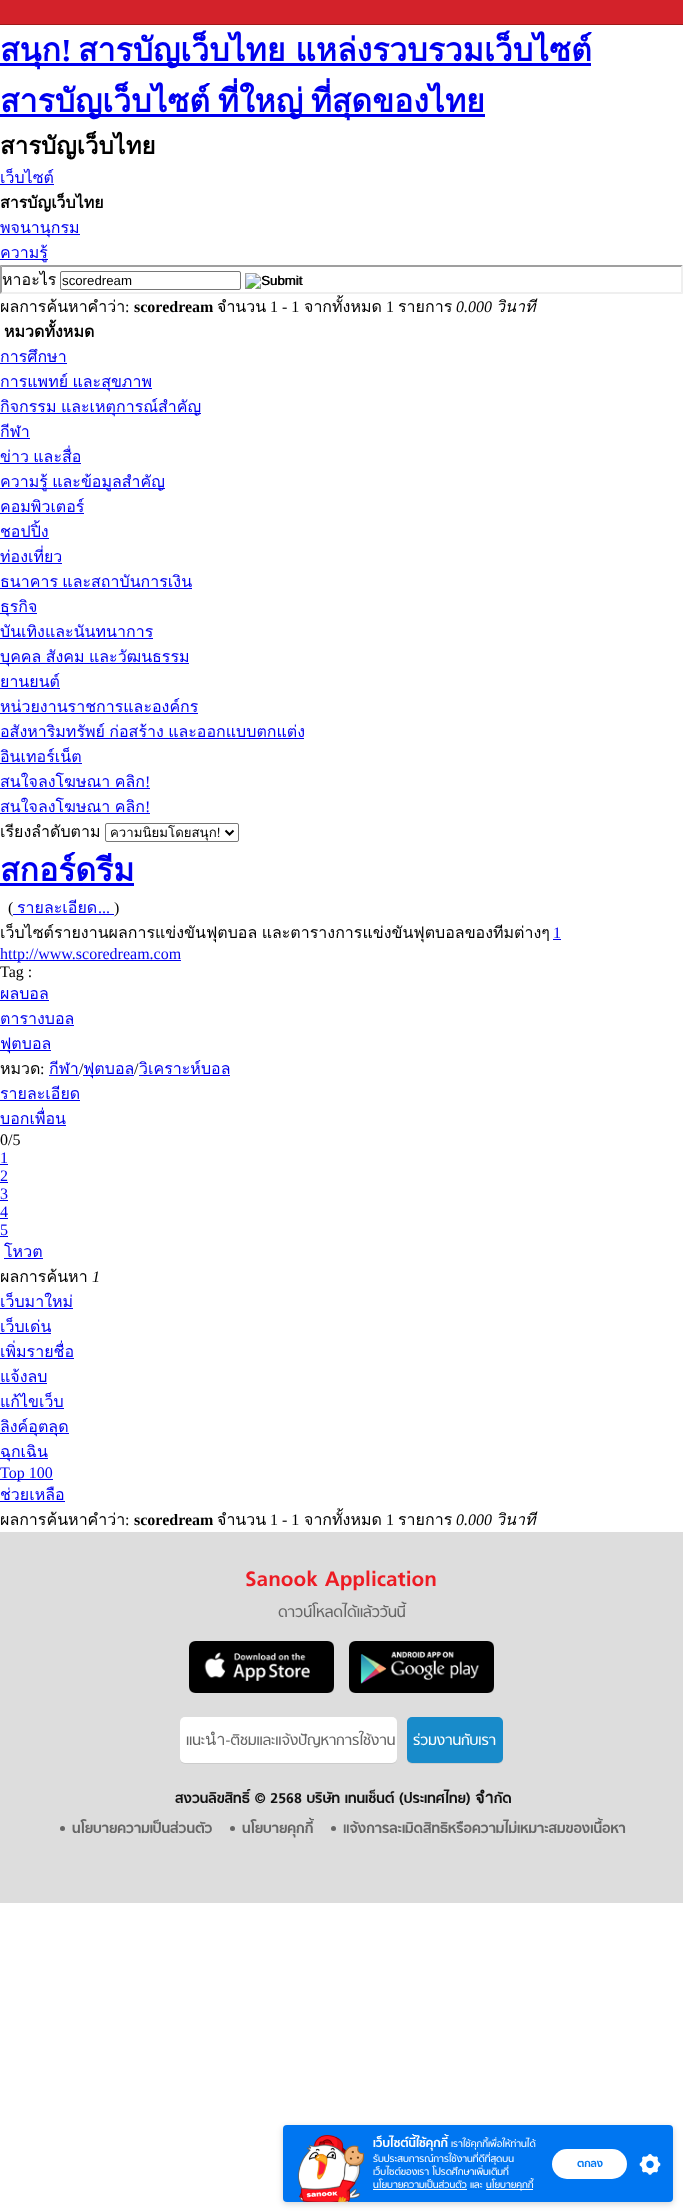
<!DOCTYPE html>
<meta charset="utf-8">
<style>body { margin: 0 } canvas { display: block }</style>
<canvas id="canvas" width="683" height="2212"></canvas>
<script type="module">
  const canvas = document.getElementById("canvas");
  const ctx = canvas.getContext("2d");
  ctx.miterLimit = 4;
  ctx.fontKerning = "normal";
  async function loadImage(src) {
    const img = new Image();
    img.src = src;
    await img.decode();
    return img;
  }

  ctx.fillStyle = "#ffffff";
  ctx.fillRect(0, 0, 683, 2212);
  ctx.fillStyle = "#d3222a";
  ctx.fillRect(0, 0, 683, 24);
  ctx.fillStyle = "#9d1919";
  ctx.fillRect(0, 24, 683, 1);
  ctx.fillStyle = "#0000ee";
  ctx.fillRect(0, 63, 591, 3);
  ctx.font = "bold 32px Loma";
  ctx.fillText("สนุก", 0, 61);
  ctx.font = "bold 32px Liberation Serif";
  ctx.fillText("!", 61, 61);
  ctx.wordSpacing = "-1px";
  ctx.font = "bold 32px Loma";
  ctx.fillText("สารบัญเว็บไทย แหล่งรวบรวมเว็บไซต์", 78, 61);
  ctx.fillRect(0, 114, 485, 3);
  ctx.wordSpacing = "-3px";
  ctx.fillText("สารบัญเว็บไซต์ ที่ใหญ่ ที่สุดของไทย", 0, 112);
  ctx.wordSpacing = "0px";
  ctx.font = "bold 24px Loma";
  ctx.fillStyle = "#000000";
  ctx.fillText("สารบัญเว็บไทย", 0, 154);
  ctx.font = "16px Loma";
  ctx.fillStyle = "#0000ee";
  ctx.fillText("เว็บไซต์", 0, 183);
  ctx.fillRect(0, 184, 54, 1);
  ctx.font = "bold 16px Loma";
  ctx.fillStyle = "#000000";
  ctx.fillText("สารบัญเว็บไทย", 0, 208);
  ctx.fillStyle = "#0000ee";
  ctx.fillRect(0, 234, 80, 1);
  ctx.font = "16px Loma";
  ctx.fillText("พจนานุกรม", 0, 233);
  ctx.fillRect(0, 259, 48, 1);
  ctx.fillText("ความรู้", 0, 258);
  ctx.fillStyle = "#9f9f9f";
  ctx.beginPath();
  ctx.moveTo(0, 265);
  ctx.lineTo(683, 265);
  ctx.lineTo(681, 267);
  ctx.lineTo(2, 267);
  ctx.closePath();
  ctx.fill();
  ctx.fillStyle = "#efefef";
  ctx.beginPath();
  ctx.moveTo(683, 265);
  ctx.lineTo(683, 294);
  ctx.lineTo(681, 292);
  ctx.lineTo(681, 267);
  ctx.closePath();
  ctx.fill();
  ctx.beginPath();
  ctx.moveTo(683, 294);
  ctx.lineTo(0, 294);
  ctx.lineTo(2, 292);
  ctx.lineTo(681, 292);
  ctx.closePath();
  ctx.fill();
  ctx.fillStyle = "#9f9f9f";
  ctx.beginPath();
  ctx.moveTo(0, 294);
  ctx.lineTo(0, 265);
  ctx.lineTo(2, 267);
  ctx.lineTo(2, 292);
  ctx.closePath();
  ctx.fill();
  ctx.fillStyle = "#000000";
  ctx.fillText("หาอะไร", 2, 285);
  ctx.beginPath();
  ctx.roundRect(60.5, 271.5, 180, 18, 1.5);
  ctx.strokeStyle = "#767676";
  ctx.stroke();
  ctx.font = "13.25px Liberation Sans";
  ctx.fillText("scoredream", 62, 285);
  ctx.drawImage(await loadImage("img1.png"), 245, 273, 58, 16);
  ctx.fillText("Submit", 261, 285);
  ctx.font = "16px Loma";
  ctx.fillText("ผลการค้นหาคำว่า", 0, 312);
  ctx.font = "16px Liberation Serif";
  ctx.fillText(":", 125, 312);
  ctx.font = "bold 16px Liberation Serif";
  ctx.fillText("scoredream", 134, 312);
  ctx.font = "16px Loma";
  ctx.fillText("จำนวน", 217, 312);
  ctx.font = "16px Liberation Serif";
  ctx.fillText("1 - 1", 270, 312);
  ctx.font = "16px Loma";
  ctx.fillText("จากทั้งหมด", 304, 312);
  ctx.font = "16px Liberation Serif";
  ctx.fillText("1", 386, 312);
  ctx.font = "16px Loma";
  ctx.fillText("รายการ", 398, 312);
  ctx.font = "italic 16px Liberation Serif";
  ctx.fillText("0.000", 456, 312);
  ctx.font = "italic 16px Loma";
  ctx.fillText("วินาที", 496, 312);
  ctx.font = "bold 16px Loma";
  ctx.fillText("หมวดทั้งหมด", 4, 337);
  ctx.font = "16px Loma";
  ctx.fillStyle = "#0000ee";
  ctx.fillText("การศึกษา", 0, 362);
  ctx.fillRect(0, 363, 67, 1);
  ctx.fillRect(0, 388, 152, 1);
  ctx.wordSpacing = "-1px";
  ctx.fillText("การแพทย์ และสุขภาพ", 0, 387);
  ctx.fillRect(0, 413, 201, 1);
  ctx.fillText("กิจกรรม และเหตุการณ์สำคัญ", 0, 412);
  ctx.wordSpacing = "0px";
  ctx.fillText("กีฬา", 0, 437);
  ctx.fillRect(0, 438, 30, 1);
  ctx.wordSpacing = "-1px";
  ctx.fillText("ข่าว และสื่อ", 0, 462);
  ctx.fillRect(0, 463, 81, 1);
  ctx.fillRect(0, 488, 165, 1);
  ctx.fillText("ความรู้ และข้อมูลสำคัญ", 0, 487);
  ctx.wordSpacing = "0px";
  ctx.fillText("คอมพิวเตอร์", 0, 512);
  ctx.fillRect(0, 513, 84, 1);
  ctx.fillText("ชอปปิ้ง", 0, 537);
  ctx.fillRect(0, 538, 49, 1);
  ctx.fillText("ท่องเที่ยว", 0, 562);
  ctx.fillRect(0, 563, 62, 1);
  ctx.wordSpacing = "-1px";
  ctx.fillText("ธนาคาร และสถาบันการเงิน", 0, 587);
  ctx.fillRect(0, 588, 192, 1);
  ctx.wordSpacing = "0px";
  ctx.fillText("ธุรกิจ", 0, 612);
  ctx.fillRect(0, 613, 37, 1);
  ctx.fillText("บันเทิงและนันทนาการ", 0, 637);
  ctx.fillRect(0, 638, 153, 1);
  ctx.wordSpacing = "-1px";
  ctx.fillText("บุคคล สังคม และวัฒนธรรม", 0, 662);
  ctx.fillRect(0, 663, 189, 1);
  ctx.wordSpacing = "0px";
  ctx.fillText("ยานยนต์", 0, 687);
  ctx.fillRect(0, 688, 60, 1);
  ctx.fillText("หน่วยงานราชการและองค์กร", 0, 712);
  ctx.fillRect(0, 713, 198, 1);
  ctx.wordSpacing = "-1px";
  ctx.fillText("อสังหาริมทรัพย์ ก่อสร้าง และออกแบบตกแต่ง", 0, 737);
  ctx.fillRect(0, 738, 304, 1);
  ctx.wordSpacing = "0px";
  ctx.fillText("อินเทอร์เน็ต", 0, 762);
  ctx.fillRect(0, 763, 82, 1);
  ctx.wordSpacing = "-1px";
  ctx.fillText("สนใจลงโฆษณา คลิก", 0, 787);
  ctx.wordSpacing = "0px";
  ctx.font = "16px Liberation Serif";
  ctx.fillText("!", 145, 787);
  ctx.fillRect(0, 788, 150, 1);
  ctx.wordSpacing = "-1px";
  ctx.font = "16px Loma";
  ctx.fillText("สนใจลงโฆษณา คลิก", 0, 812);
  ctx.wordSpacing = "0px";
  ctx.font = "16px Liberation Serif";
  ctx.fillText("!", 145, 812);
  ctx.fillRect(0, 813, 150, 1);
  ctx.font = "16px Loma";
  ctx.fillStyle = "#000000";
  ctx.fillText("เรียงลำดับตาม", 0, 837);
  ctx.beginPath();
  ctx.roundRect(105.5, 823.5, 133, 18, 1.5);
  ctx.stroke();
  ctx.beginPath();
  ctx.moveTo(225.5, 830.5);
  ctx.lineTo(229.5, 834.5);
  ctx.lineTo(233.5, 830.5);
  ctx.strokeStyle = "#000000";
  ctx.lineWidth = 2;
  ctx.stroke();
  ctx.font = "13.25px Loma";
  ctx.fillText("ความนิยมโดยสนุก!", 110, 837);
  ctx.font = "bold 32px Loma";
  ctx.fillStyle = "#0000ee";
  ctx.fillText("สกอร์ดรีม", 0, 881);
  ctx.fillRect(0, 883, 134, 3);
  ctx.font = "16px Liberation Serif";
  ctx.fillStyle = "#000000";
  ctx.fillText("(", 8, 913);
  ctx.font = "16px Loma";
  ctx.fillStyle = "#0000ee";
  ctx.fillText("รายละเอียด", 17, 913);
  ctx.font = "16px Liberation Serif";
  ctx.fillText("...", 98, 913);
  ctx.fillRect(13, 914, 101, 1);
  ctx.fillStyle = "#000000";
  ctx.fillText(")", 114, 913);
  ctx.wordSpacing = "-1px";
  ctx.font = "16px Loma";
  ctx.fillText("เว็บไซต์รายงานผลการแข่งขันฟุตบอล และตารางการแข่งขันฟุตบอลของทีมต่างๆ", 0, 938);
  ctx.wordSpacing = "0px";
  ctx.font = "16px Liberation Serif";
  ctx.fillStyle = "#0000ee";
  ctx.fillText("1", 553, 938);
  ctx.fillRect(553, 939, 8, 1);
  ctx.fillRect(0, 960, 181, 1);
  ctx.fillText("http://www.scoredream.com", 0, 959);
  ctx.fillStyle = "#000000";
  ctx.fillText("Tag :", 0, 977);
  ctx.font = "16px Loma";
  ctx.fillStyle = "#0000ee";
  ctx.fillText("ผลบอล", 0, 999);
  ctx.fillRect(0, 1000, 49, 1);
  ctx.fillText("ตารางบอล", 0, 1024);
  ctx.fillRect(0, 1025, 74, 1);
  ctx.fillText("ฟุตบอล", 0, 1049);
  ctx.fillRect(0, 1050, 51, 1);
  ctx.font = "16px Liberation Serif";
  ctx.fillStyle = "#000000";
  ctx.fillText(":", 40, 1074);
  ctx.font = "16px Loma";
  ctx.fillStyle = "#0000ee";
  ctx.fillText("กีฬา", 49, 1074);
  ctx.fillRect(49, 1075, 30, 1);
  ctx.fillRect(83, 1075, 51, 1);
  ctx.font = "16px Liberation Serif";
  ctx.fillStyle = "#000000";
  ctx.fillText("/", 79, 1074);
  ctx.font = "16px Loma";
  ctx.fillStyle = "#0000ee";
  ctx.fillText("ฟุตบอล", 83, 1074);
  ctx.font = "16px Liberation Serif";
  ctx.fillStyle = "#000000";
  ctx.fillText("/", 134, 1074);
  ctx.font = "16px Loma";
  ctx.fillStyle = "#0000ee";
  ctx.fillText("วิเคราะห์บอล", 139, 1074);
  ctx.fillRect(139, 1075, 91, 1);
  ctx.fillStyle = "#000000";
  ctx.fillText("หมวด", 0, 1074);
  ctx.fillStyle = "#0000ee";
  ctx.fillText("รายละเอียด", 0, 1099);
  ctx.fillRect(0, 1100, 80, 1);
  ctx.fillText("บอกเพื่อน", 0, 1124);
  ctx.fillRect(0, 1125, 66, 1);
  ctx.font = "16px Liberation Serif";
  ctx.fillStyle = "#000000";
  ctx.fillText("0/5", 0, 1145);
  ctx.fillStyle = "#0000ee";
  ctx.fillText("1", 0, 1163);
  ctx.fillRect(0, 1164, 8, 1);
  ctx.fillText("2", 0, 1181);
  ctx.fillRect(0, 1182, 8, 1);
  ctx.fillText("3", 0, 1199);
  ctx.fillRect(0, 1200, 8, 1);
  ctx.fillText("4", 0, 1217);
  ctx.fillRect(0, 1218, 8, 1);
  ctx.fillText("5", 0, 1235);
  ctx.fillRect(0, 1236, 8, 1);
  ctx.font = "16px Loma";
  ctx.fillText("โหวต", 4, 1257);
  ctx.fillRect(4, 1258, 39, 1);
  ctx.fillStyle = "#000000";
  ctx.fillText("ผลการค้นหา", 0, 1282);
  ctx.font = "italic 16px Liberation Serif";
  ctx.fillText("1", 92, 1282);
  ctx.font = "16px Loma";
  ctx.fillStyle = "#0000ee";
  ctx.fillText("เว็บมาใหม่", 0, 1307);
  ctx.fillRect(0, 1308, 73, 1);
  ctx.fillText("เว็บเด่น", 0, 1332);
  ctx.fillRect(0, 1333, 51, 1);
  ctx.fillText("เพิ่มรายชื่อ", 0, 1357);
  ctx.fillRect(0, 1358, 74, 1);
  ctx.fillText("แจ้งลบ", 0, 1382);
  ctx.fillRect(0, 1383, 47, 1);
  ctx.fillText("แก้ไขเว็บ", 0, 1407);
  ctx.fillRect(0, 1408, 64, 1);
  ctx.fillRect(0, 1433, 69, 1);
  ctx.fillText("ลิงค์อุตลุด", 0, 1432);
  ctx.fillText("ฉุกเฉิน", 0, 1457);
  ctx.fillRect(0, 1458, 48, 1);
  ctx.fillRect(0, 1479, 53, 1);
  ctx.font = "16px Liberation Serif";
  ctx.fillText("Top 100", 0, 1478);
  ctx.font = "16px Loma";
  ctx.fillText("ช่วยเหลือ", 0, 1500);
  ctx.fillRect(0, 1501, 65, 1);
  ctx.fillStyle = "#000000";
  ctx.fillText("ผลการค้นหาคำว่า", 0, 1525);
  ctx.font = "16px Liberation Serif";
  ctx.fillText(":", 125, 1525);
  ctx.font = "bold 16px Liberation Serif";
  ctx.fillText("scoredream", 134, 1525);
  ctx.font = "16px Loma";
  ctx.fillText("จำนวน", 217, 1525);
  ctx.font = "16px Liberation Serif";
  ctx.fillText("1 - 1", 270, 1525);
  ctx.font = "16px Loma";
  ctx.fillText("จากทั้งหมด", 304, 1525);
  ctx.font = "16px Liberation Serif";
  ctx.fillText("1", 386, 1525);
  ctx.font = "16px Loma";
  ctx.fillText("รายการ", 398, 1525);
  ctx.font = "italic 16px Liberation Serif";
  ctx.fillText("0.000", 456, 1525);
  ctx.font = "italic 16px Loma";
  ctx.fillText("วินาที", 496, 1525);
  ctx.fillStyle = "#dddddd";
  ctx.fillRect(0, 1532, 683, 371);
  ctx.font = "bold 23.75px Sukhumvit";
  ctx.fillStyle = "#ed1c24";
  ctx.fillText("Sanook Application", 245, 1586);
  ctx.font = "17px Sukhumvit";
  ctx.fillStyle = "#666666";
  ctx.fillText("ดาวน์โหลดได้แล้ววันนี้", 278, 1617);
  ctx.drawImage(await loadImage("img2.png"), 189, 1641, 145, 52);
  ctx.drawImage(await loadImage("img3.png"), 349, 1641, 145, 52);
  ctx.fillStyle = "#cccccc";
  ctx.filter = "blur(0.5px)";
  ctx.beginPath();
  ctx.roundRect(180, 1718, 217, 46, 5);
  ctx.fill();
  ctx.filter = "none";
  ctx.fillStyle = "#ffffff";
  ctx.beginPath();
  ctx.roundRect(180, 1717, 217, 46, 5);
  ctx.fill();
  ctx.font = "16.5px Sukhumvit";
  ctx.fillStyle = "#666666";
  ctx.fillText("แนะนำ-ติชมเเละแจ้งปัญหาการใช้งาน", 186, 1745);
  ctx.fillStyle = "#cccccc";
  ctx.filter = "blur(0.5px)";
  ctx.beginPath();
  ctx.roundRect(407, 1718, 96, 46, 5);
  ctx.fill();
  ctx.filter = "none";
  ctx.fillStyle = "#188bca";
  ctx.beginPath();
  ctx.roundRect(407, 1717, 96, 46, 5);
  ctx.fill();
  ctx.fillStyle = "#ffffff";
  ctx.fillText("ร่วมงานกับเรา", 413, 1745);
  ctx.font = "bold 16.15px Sukhumvit";
  ctx.fillStyle = "#111111";
  ctx.fillText("สงวนลิขสิทธิ์ © 2568 บริษัท เทนเซ็นต์ (ประเทศไทย) จำกัด", 175, 1803);
  ctx.fillStyle = "#666666";
  ctx.beginPath();
  ctx.arc(62.5, 1828.5, 2.5, 0, Math.PI * 2);
  ctx.fill();
  ctx.fillText("นโยบายความเป็นส่วนตัว", 72, 1833);
  ctx.beginPath();
  ctx.arc(232.5, 1828.5, 2.5, 0, Math.PI * 2);
  ctx.fill();
  ctx.fillText("นโยบายคุกกี้", 242, 1833);
  ctx.beginPath();
  ctx.arc(333.5, 1828.5, 2.5, 0, Math.PI * 2);
  ctx.fill();
  ctx.fillText("แจ้งการละเมิดสิทธิหรือความไม่เหมาะสมของเนื้อหา", 343, 1833);
  ctx.fillStyle = "rgba(0, 0, 0, 0.17)";
  ctx.filter = "blur(3px)";
  ctx.beginPath();
  ctx.roundRect(283, 2127, 390, 77, 4);
  ctx.fill();
  ctx.filter = "none";
  ctx.fillStyle = "#0076f1";
  ctx.beginPath();
  ctx.roundRect(283, 2125, 390, 77, 4);
  ctx.fill();
  ctx.drawImage(await loadImage("img4.png"), 297, 2135, 67, 67);
  ctx.font = "bold 13.75px 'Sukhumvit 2'";
  ctx.fillStyle = "#ffffff";
  ctx.fillText("เว็บไซต์นี้ใช้คุกกี้", 373, 2147);
  ctx.font = "11px 'Sukhumvit 2'";
  ctx.fillText("เราใช้คุกกี้เพื่อให้ท่านได้", 451, 2147);
  ctx.fillText("รับประสบการณ์การใช้งานที่ดีที่สุดบน", 373, 2162);
  ctx.fillText("เว็บไซต์ของเรา โปรดศึกษาเพิ่มเติมที่", 373, 2175);
  ctx.fillText("นโยบายความเป็นส่วนตัว และ", 373, 2188);
  ctx.fillRect(373, 2189, 94, 1);
  ctx.fillRect(486, 2189, 47, 1);
  ctx.fillText("นโยบายคุกกี้", 486, 2188);
  ctx.beginPath();
  ctx.roundRect(552, 2149, 75, 30, 15);
  ctx.fill();
  ctx.font = "bold 12px 'Sukhumvit 2'";
  ctx.fillStyle = "#0076f1";
  ctx.fillText("ตกลง", 577, 2167);
  ctx.drawImage(await loadImage("img5.png"), 639, 2154, 22, 21);
</script>
